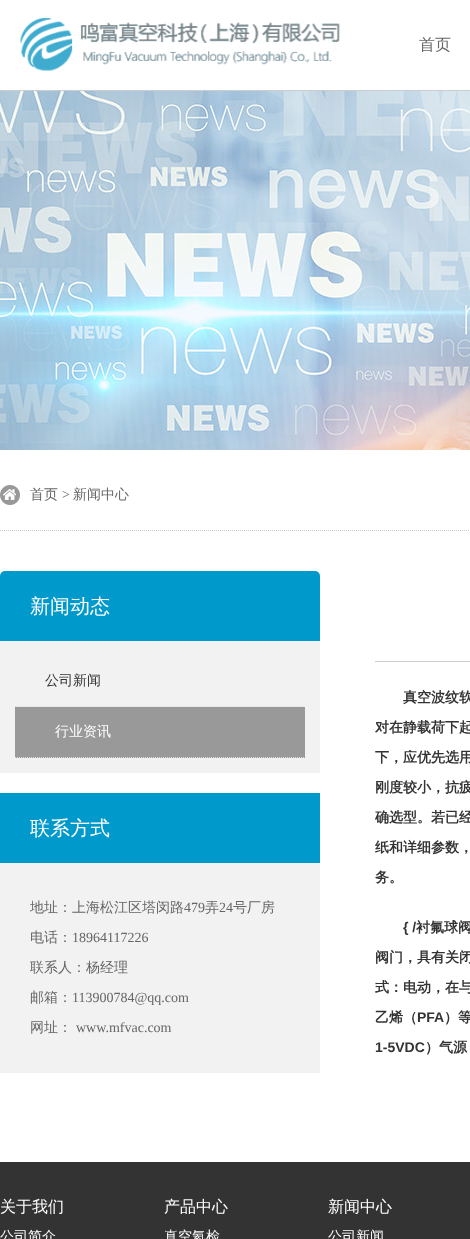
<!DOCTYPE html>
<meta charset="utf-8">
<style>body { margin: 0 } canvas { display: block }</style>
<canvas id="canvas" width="470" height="1239"></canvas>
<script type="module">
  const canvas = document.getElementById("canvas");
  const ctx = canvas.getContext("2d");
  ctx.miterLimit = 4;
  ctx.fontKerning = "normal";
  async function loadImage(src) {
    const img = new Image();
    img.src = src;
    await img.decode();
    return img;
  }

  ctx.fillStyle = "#ffffff";
  ctx.fillRect(0, 0, 470, 1239);
  ctx.fillStyle = "#cccccc";
  ctx.fillRect(0, 90, 470, 1);
  ctx.drawImage(await loadImage("img1.png"), 20, 18, 320, 53);
  ctx.font = "500 16px WenQuanYi Zen Hei";
  ctx.fillStyle = "#666666";
  ctx.fillText("首页", 419, 50);
  ctx.drawImage(await loadImage("img2.png"), 0, 91, 470, 359);
  ctx.drawImage(await loadImage("img3.png"), 0, 485, 20, 20);
  ctx.beginPath();
  ctx.moveTo(0, 530.5);
  ctx.lineTo(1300, 530.5);
  ctx.strokeStyle = "#cccccc";
  ctx.setLineDash([1, 1]);
  ctx.stroke();
  ctx.font = "500 14px WenQuanYi Zen Hei";
  ctx.fillText("首页", 30, 499);
  ctx.font = "14px Liberation Serif";
  ctx.fillText(">", 62, 499);
  ctx.font = "500 14px WenQuanYi Zen Hei";
  ctx.fillText("新闻中心", 73, 499);
  ctx.fillStyle = "#0099cc";
  ctx.beginPath();
  ctx.roundRect(0, 571, 320, 502, 5);
  ctx.fill();
  ctx.font = "500 20px WenQuanYi Zen Hei";
  ctx.fillStyle = "#ffffff";
  ctx.fillText("新闻动态", 30, 613);
  ctx.fillStyle = "#f2f2f2";
  ctx.fillRect(0, 641, 320, 132);
  ctx.beginPath();
  ctx.moveTo(15, 706.5);
  ctx.lineTo(305, 706.5);
  ctx.strokeStyle = "#dddddd";
  ctx.stroke();
  ctx.font = "500 14px WenQuanYi Zen Hei";
  ctx.fillStyle = "#333333";
  ctx.fillText("公司新闻", 45, 685);
  ctx.fillStyle = "#999999";
  ctx.fillRect(15, 707, 290, 51);
  ctx.beginPath();
  ctx.moveTo(15, 757.5);
  ctx.lineTo(305, 757.5);
  ctx.stroke();
  ctx.fillStyle = "#ffffff";
  ctx.fillText("行业资讯", 55, 736);
  ctx.fillRect(0, 773, 320, 20);
  ctx.font = "500 20px WenQuanYi Zen Hei";
  ctx.fillText("联系方式", 30, 835);
  ctx.fillStyle = "#f2f2f2";
  ctx.fillRect(0, 863, 320, 210);
  ctx.font = "500 14px WenQuanYi Zen Hei";
  ctx.fillStyle = "#666666";
  ctx.fillText("地址：上海松江区塔闵路", 30, 912);
  ctx.font = "14px Liberation Serif";
  ctx.fillText("479", 184, 912);
  ctx.font = "500 14px WenQuanYi Zen Hei";
  ctx.fillText("弄", 205, 912);
  ctx.font = "14px Liberation Serif";
  ctx.fillText("24", 219, 912);
  ctx.font = "500 14px WenQuanYi Zen Hei";
  ctx.fillText("号厂房", 233, 912);
  ctx.fillText("电话：", 30, 942);
  ctx.font = "14px Liberation Serif";
  ctx.fillText("18964117226", 72, 942);
  ctx.font = "500 14px WenQuanYi Zen Hei";
  ctx.fillText("联系人：杨经理", 30, 972);
  ctx.fillText("邮箱：", 30, 1002);
  ctx.font = "14px Liberation Serif";
  ctx.fillText("113900784@qq.com", 72, 1002);
  ctx.font = "500 14px WenQuanYi Zen Hei";
  ctx.fillText("网址：", 30, 1032);
  ctx.font = "14px Liberation Serif";
  ctx.fillText("www.mfvac.com", 76, 1032);
  ctx.fillStyle = "#cccccc";
  ctx.fillRect(375, 661, 95, 1);
  ctx.font = "bold 14px WenQuanYi Zen Hei";
  ctx.fillStyle = "#333333";
  ctx.fillText("真空波纹软", 403, 702);
  ctx.fillText("对在静载荷下起", 375, 732);
  ctx.fillText("下，应优先选用", 375, 762);
  ctx.fillText("刚度较小，抗疲", 375, 792);
  ctx.fillText("确选型。若已经", 375, 822);
  ctx.fillText("纸和详细参数，", 375, 852);
  ctx.fillText("务。", 375, 882);
  ctx.font = "bold 14px Liberation Sans";
  ctx.fillText("{ /", 403, 932);
  ctx.font = "bold 14px WenQuanYi Zen Hei";
  ctx.fillText("衬氟球阀", 416, 932);
  ctx.fillText("阀门，具有关闭", 375, 962);
  ctx.fillText("式：电动，在与", 375, 992);
  ctx.fillText("乙烯（", 375, 1022);
  ctx.font = "bold 14px Liberation Sans";
  ctx.fillText("PFA", 417, 1022);
  ctx.font = "bold 14px WenQuanYi Zen Hei";
  ctx.fillText("）等", 444, 1022);
  ctx.font = "bold 14px Liberation Sans";
  ctx.fillText("1-5VDC", 375, 1052);
  ctx.font = "bold 14px WenQuanYi Zen Hei";
  ctx.fillText("）气源", 425, 1052);
  ctx.fillRect(0, 1162, 470, 77);
  ctx.font = "500 16px WenQuanYi Zen Hei";
  ctx.fillStyle = "#ffffff";
  ctx.fillText("关于我们", 0, 1212);
  ctx.font = "500 14px WenQuanYi Zen Hei";
  ctx.fillText("公司简介", 0, 1241);
  ctx.font = "500 16px WenQuanYi Zen Hei";
  ctx.fillText("产品中心", 164, 1212);
  ctx.font = "500 14px WenQuanYi Zen Hei";
  ctx.fillText("真空氦检", 164, 1241);
  ctx.font = "500 16px WenQuanYi Zen Hei";
  ctx.fillText("新闻中心", 328, 1212);
  ctx.font = "500 14px WenQuanYi Zen Hei";
  ctx.fillText("公司新闻", 328, 1241);
</script>
